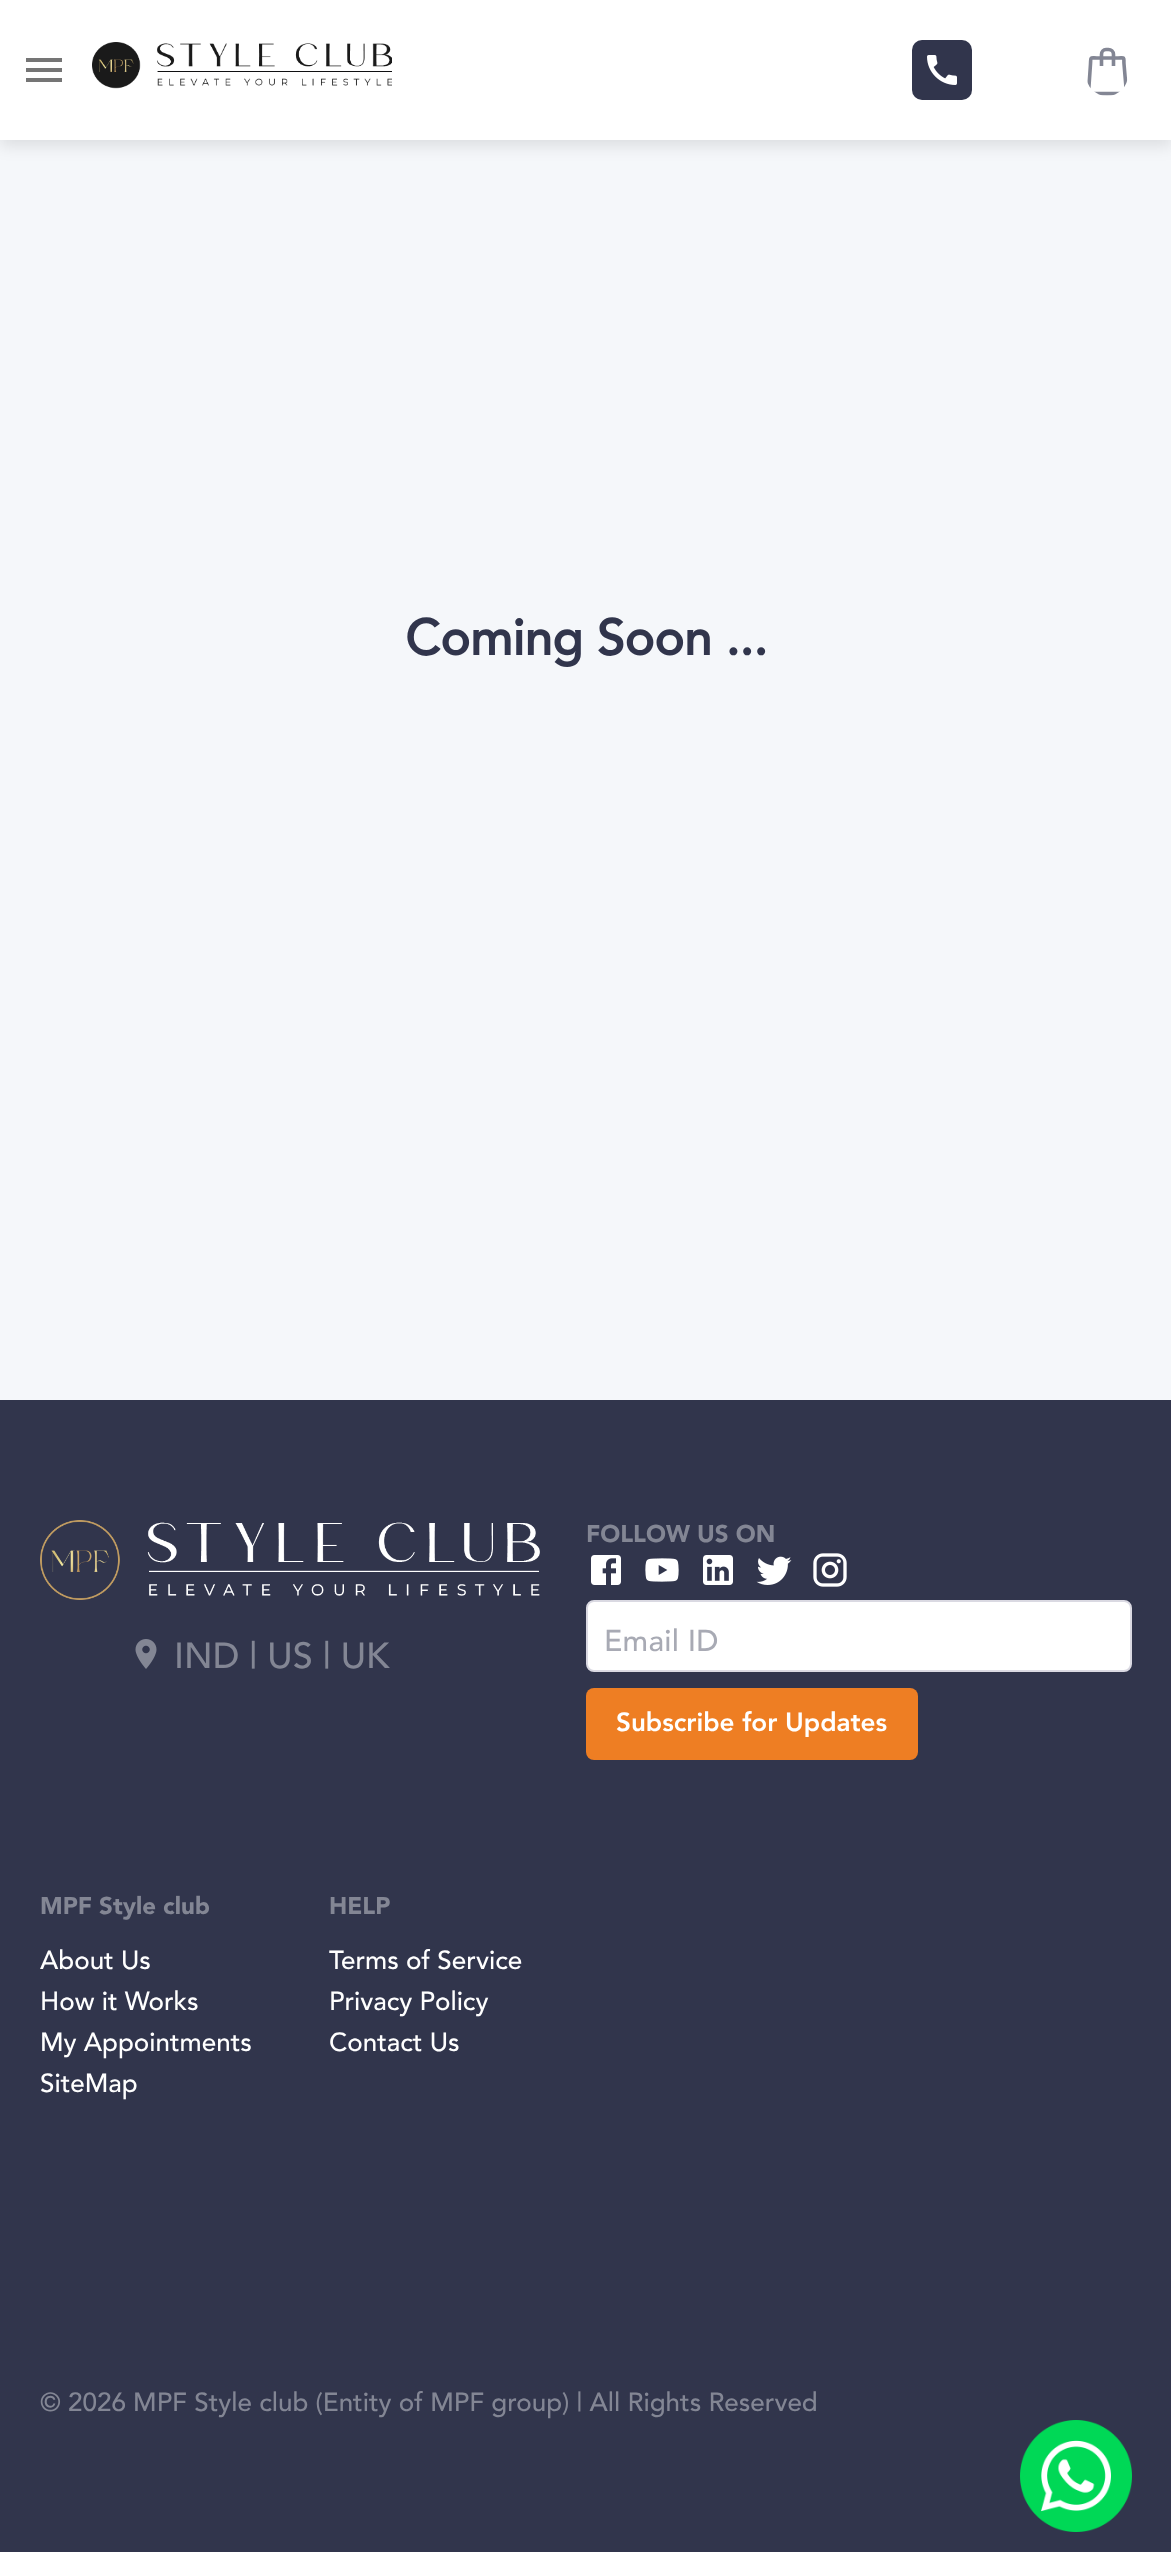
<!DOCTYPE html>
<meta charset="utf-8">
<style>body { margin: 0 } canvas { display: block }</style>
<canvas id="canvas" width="1171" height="2552"></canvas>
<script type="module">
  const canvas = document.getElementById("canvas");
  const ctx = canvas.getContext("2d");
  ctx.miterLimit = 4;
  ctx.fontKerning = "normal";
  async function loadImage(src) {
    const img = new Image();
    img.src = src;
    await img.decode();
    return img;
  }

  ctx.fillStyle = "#f5f7fa";
  ctx.fillRect(0, 0, 1171, 2552);
  ctx.fillStyle = "rgba(0, 0, 0, 0.1)";
  ctx.filter = "blur(8px)";
  ctx.beginPath();
  ctx.rect(0, 6, 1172, 140);
  ctx.fill();
  ctx.filter = "none";
  ctx.fillStyle = "#ffffff";
  ctx.fillRect(0, 0, 1171, 140);
  ctx.fillStyle = "#757575";
  ctx.beginPath();
  ctx.moveTo(26, 82);
  ctx.lineTo(62, 82);
  ctx.lineTo(62, 78);
  ctx.lineTo(26, 78);
  ctx.closePath();
  ctx.moveTo(26, 72);
  ctx.lineTo(62, 72);
  ctx.lineTo(62, 68);
  ctx.lineTo(26, 68);
  ctx.closePath();
  ctx.moveTo(26, 58);
  ctx.lineTo(26, 62);
  ctx.lineTo(62, 62);
  ctx.lineTo(62, 58);
  ctx.closePath();
  ctx.fill();
  ctx.drawImage(await loadImage("img1.png"), 92, 42, 300, 47);
  ctx.fillStyle = "#31354c";
  ctx.beginPath();
  ctx.roundRect(912, 40, 60, 60, 10);
  ctx.fill();
  ctx.drawImage(await loadImage("img2.png"), 927, 55, 30, 30);
  ctx.save();
  ctx.beginPath();
  ctx.roundRect(1086, 46, 42, 50, 21);
  ctx.clip();
  ctx.beginPath();
  ctx.moveTo(1088.5, 93);
  ctx.lineTo(1090.5, 64);
  ctx.bezierCurveTo(1091, 56.5, 1089.5, 58, 1097, 58);
  ctx.lineTo(1118, 58);
  ctx.bezierCurveTo(1125.5, 58, 1123.5, 56.5, 1124, 64);
  ctx.lineTo(1126.5, 93);
  ctx.lineTo(1126, 93.5);
  ctx.lineTo(1089, 93.5);
  ctx.closePath();
  ctx.strokeStyle = "#838694";
  ctx.lineWidth = 3.6;
  ctx.stroke();
  ctx.restore();
  ctx.beginPath();
  ctx.moveTo(1101.5, 66);
  ctx.lineTo(1101.5, 54.5);
  ctx.bezierCurveTo(1101.5, 51.5, 1103.5, 49.5, 1106, 49.5);
  ctx.lineTo(1108.5, 49.5);
  ctx.bezierCurveTo(1111, 49.5, 1113.5, 51.5, 1113.5, 54.5);
  ctx.lineTo(1113.5, 66);
  ctx.strokeStyle = "#838694";
  ctx.lineWidth = 3.6;
  ctx.stroke();
  ctx.font = "bold 50px Avenir";
  ctx.fillText("Coming Soon ...", 405, 655);
  ctx.fillRect(0, 1400, 1171, 1152);
  ctx.drawImage(await loadImage("img3.png"), 40, 1520, 500, 80);
  ctx.drawImage(await loadImage("img4.png"), 135, 1639, 22, 30);
  ctx.font = "500 36px Avenir";
  ctx.fillStyle = "#838694";
  ctx.fillText("IND | US | UK", 174, 1668);
  ctx.font = "900 24px Avenir";
  ctx.fillText("FOLLOW US ON", 586, 1542);
  ctx.drawImage(await loadImage("img5.png"), 591, 1555, 30, 30);
  ctx.drawImage(await loadImage("img6.png"), 645, 1558, 34, 24);
  ctx.drawImage(await loadImage("img7.png"), 703, 1555, 30, 30);
  ctx.drawImage(await loadImage("img8.png"), 756, 1556, 36, 29);
  ctx.drawImage(await loadImage("img9.png"), 813, 1553, 34, 34);
  ctx.fillStyle = "#ffffff";
  ctx.beginPath();
  ctx.roundRect(587, 1601, 544, 70, 7);
  ctx.fill();
  ctx.strokeStyle = "#dad9e2";
  ctx.lineWidth = 2;
  ctx.stroke();
  ctx.letterSpacing = "0.25px";
  ctx.font = "500 30px Avenir";
  ctx.fillStyle = "#a8aab4";
  ctx.fillText("Email ID", 604, 1651);
  ctx.fillStyle = "#ee7e23";
  ctx.beginPath();
  ctx.roundRect(586, 1688, 332, 72, 8);
  ctx.fill();
  ctx.letterSpacing = "0px";
  ctx.font = "900 26px 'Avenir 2'";
  ctx.fillStyle = "#ffffff";
  ctx.fillText("Subscribe for Updates", 616, 1731);
  ctx.font = "900 24px Avenir";
  ctx.fillStyle = "#838694";
  ctx.fillText("MPF Style club", 40, 1914);
  ctx.font = "500 26px Avenir";
  ctx.fillStyle = "#ffffff";
  ctx.fillText("About Us", 40, 1969);
  ctx.fillText("How it Works", 40, 2010);
  ctx.fillText("My Appointments", 40, 2051);
  ctx.fillText("SiteMap", 40, 2092);
  ctx.font = "900 24px Avenir";
  ctx.fillStyle = "#838694";
  ctx.fillText("HELP", 329, 1914);
  ctx.font = "500 26px Avenir";
  ctx.fillStyle = "#ffffff";
  ctx.fillText("Terms of Service", 329, 1969);
  ctx.fillText("Privacy Policy", 329, 2010);
  ctx.fillText("Contact Us", 329, 2051);
  ctx.fillStyle = "#838694";
  ctx.fillText("© 2026 MPF Style club (Entity of MPF group) | All Rights Reserved", 40, 2411);
  ctx.drawImage(await loadImage("img10.png"), 1020, 2420, 112, 112);
</script>
